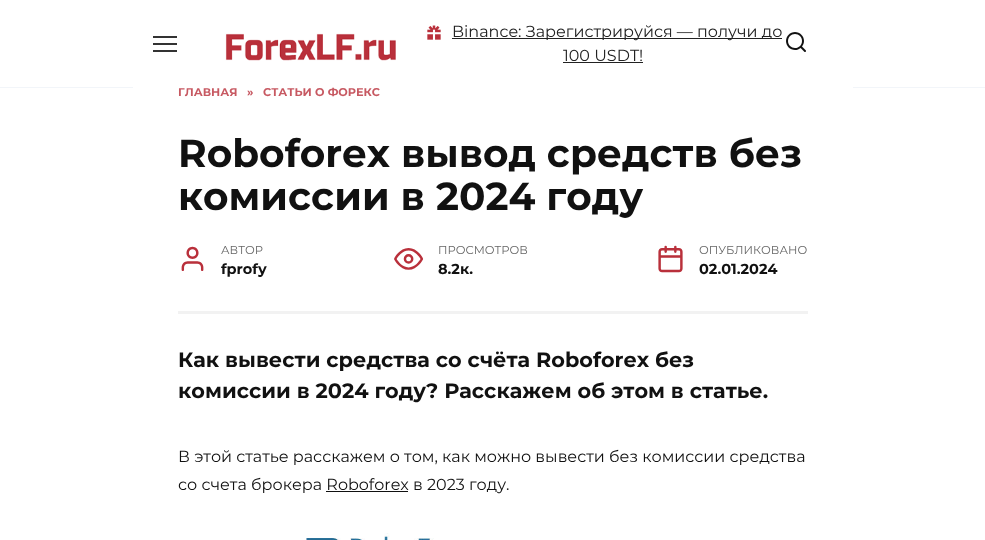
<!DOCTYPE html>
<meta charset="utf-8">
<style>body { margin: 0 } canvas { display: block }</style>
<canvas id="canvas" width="985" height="540"></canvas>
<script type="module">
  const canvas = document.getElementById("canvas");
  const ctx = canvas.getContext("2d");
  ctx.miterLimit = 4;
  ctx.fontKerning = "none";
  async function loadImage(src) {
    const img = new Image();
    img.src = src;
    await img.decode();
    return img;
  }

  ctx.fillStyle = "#ffffff";
  ctx.fillRect(0, 0, 985, 540);
  ctx.fillStyle = "#f2f5f9";
  ctx.fillRect(0, 87, 985, 1);
  ctx.fillStyle = "#333333";
  ctx.fillRect(153, 36, 24, 2);
  ctx.fillRect(153, 43, 24, 2);
  ctx.fillRect(153, 50, 24, 2);
  ctx.drawImage(await loadImage("img1.png"), 225, 33, 171, 28);
  ctx.drawImage(await loadImage("img2.png"), 427, 25, 14, 15);
  ctx.fillStyle = "#222222";
  ctx.fillRect(452, 38, 330, 1);
  ctx.font = "16px Montserrat";
  ctx.fillText("Binance: Зарегистрируйся — получи до", 452, 37);
  ctx.fillText("100 USDT!", 563, 61);
  ctx.fillRect(563, 62, 80, 1);
  ctx.font = "24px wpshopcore";
  ctx.fillStyle = "#111111";
  ctx.fillText("🔍", 784, 52);
  ctx.fillStyle = "#ffffff";
  ctx.fillRect(133, 87, 720, 1);
  ctx.font = "bold 11.25px Montserrat";
  ctx.fillStyle = "#c75962";
  ctx.fillText("ГЛАВНАЯ", 178, 96);
  ctx.fillText("»", 247, 96);
  ctx.fillText("СТАТЬИ О ФОРЕКС", 263, 96);
  ctx.font = "bold 39px Montserrat";
  ctx.fillStyle = "#111111";
  ctx.fillText("Roboforex вывод средств без", 178, 167);
  ctx.fillText("комиссии в 2024 году", 178, 210);
  ctx.fillStyle = "#f2f2f2";
  ctx.fillRect(178, 311, 630, 3);
  ctx.font = "29px wpshopcore";
  ctx.fillStyle = "#b9303b";
  ctx.fillText("👤", 178, 271);
  ctx.font = "11.5px Montserrat";
  ctx.fillStyle = "#666666";
  ctx.fillText("АВТОР", 221, 254);
  ctx.font = "bold 14.5px Montserrat";
  ctx.fillStyle = "#111111";
  ctx.fillText("fprofy", 221, 274);
  ctx.font = "29px wpshopcore";
  ctx.fillStyle = "#b9303b";
  ctx.fillText("👀", 394, 271);
  ctx.font = "11.5px Montserrat";
  ctx.fillStyle = "#666666";
  ctx.fillText("ПРОСМОТРОВ", 438, 254);
  ctx.font = "bold 14.5px Montserrat";
  ctx.fillStyle = "#111111";
  ctx.fillText("8.2к.", 438, 274);
  ctx.font = "29px wpshopcore";
  ctx.fillStyle = "#b9303b";
  ctx.fillText("📅", 656, 271);
  ctx.font = "11.5px Montserrat";
  ctx.fillStyle = "#666666";
  ctx.fillText("ОПУБЛИКОВАНО", 699, 254);
  ctx.font = "bold 14.5px Montserrat";
  ctx.fillStyle = "#111111";
  ctx.fillText("02.01.2024", 699, 274);
  ctx.font = "bold 20.8px Montserrat";
  ctx.fillText("Как вывести средства со счёта Roboforex без", 178, 367);
  ctx.fillText("комиссии в 2024 году? Расскажем об этом в статье.", 178, 398);
  ctx.font = "16px Montserrat";
  ctx.fillText("В этой статье расскажем о том, как можно вывести без комиссии средства", 178, 462);
  ctx.fillText("со счета брокера Roboforex в 2023 году.", 178, 490);
  ctx.fillRect(326, 491, 82, 1);
  ctx.drawImage(await loadImage("img3.png"), 306, 533, 128, 7);
</script>
